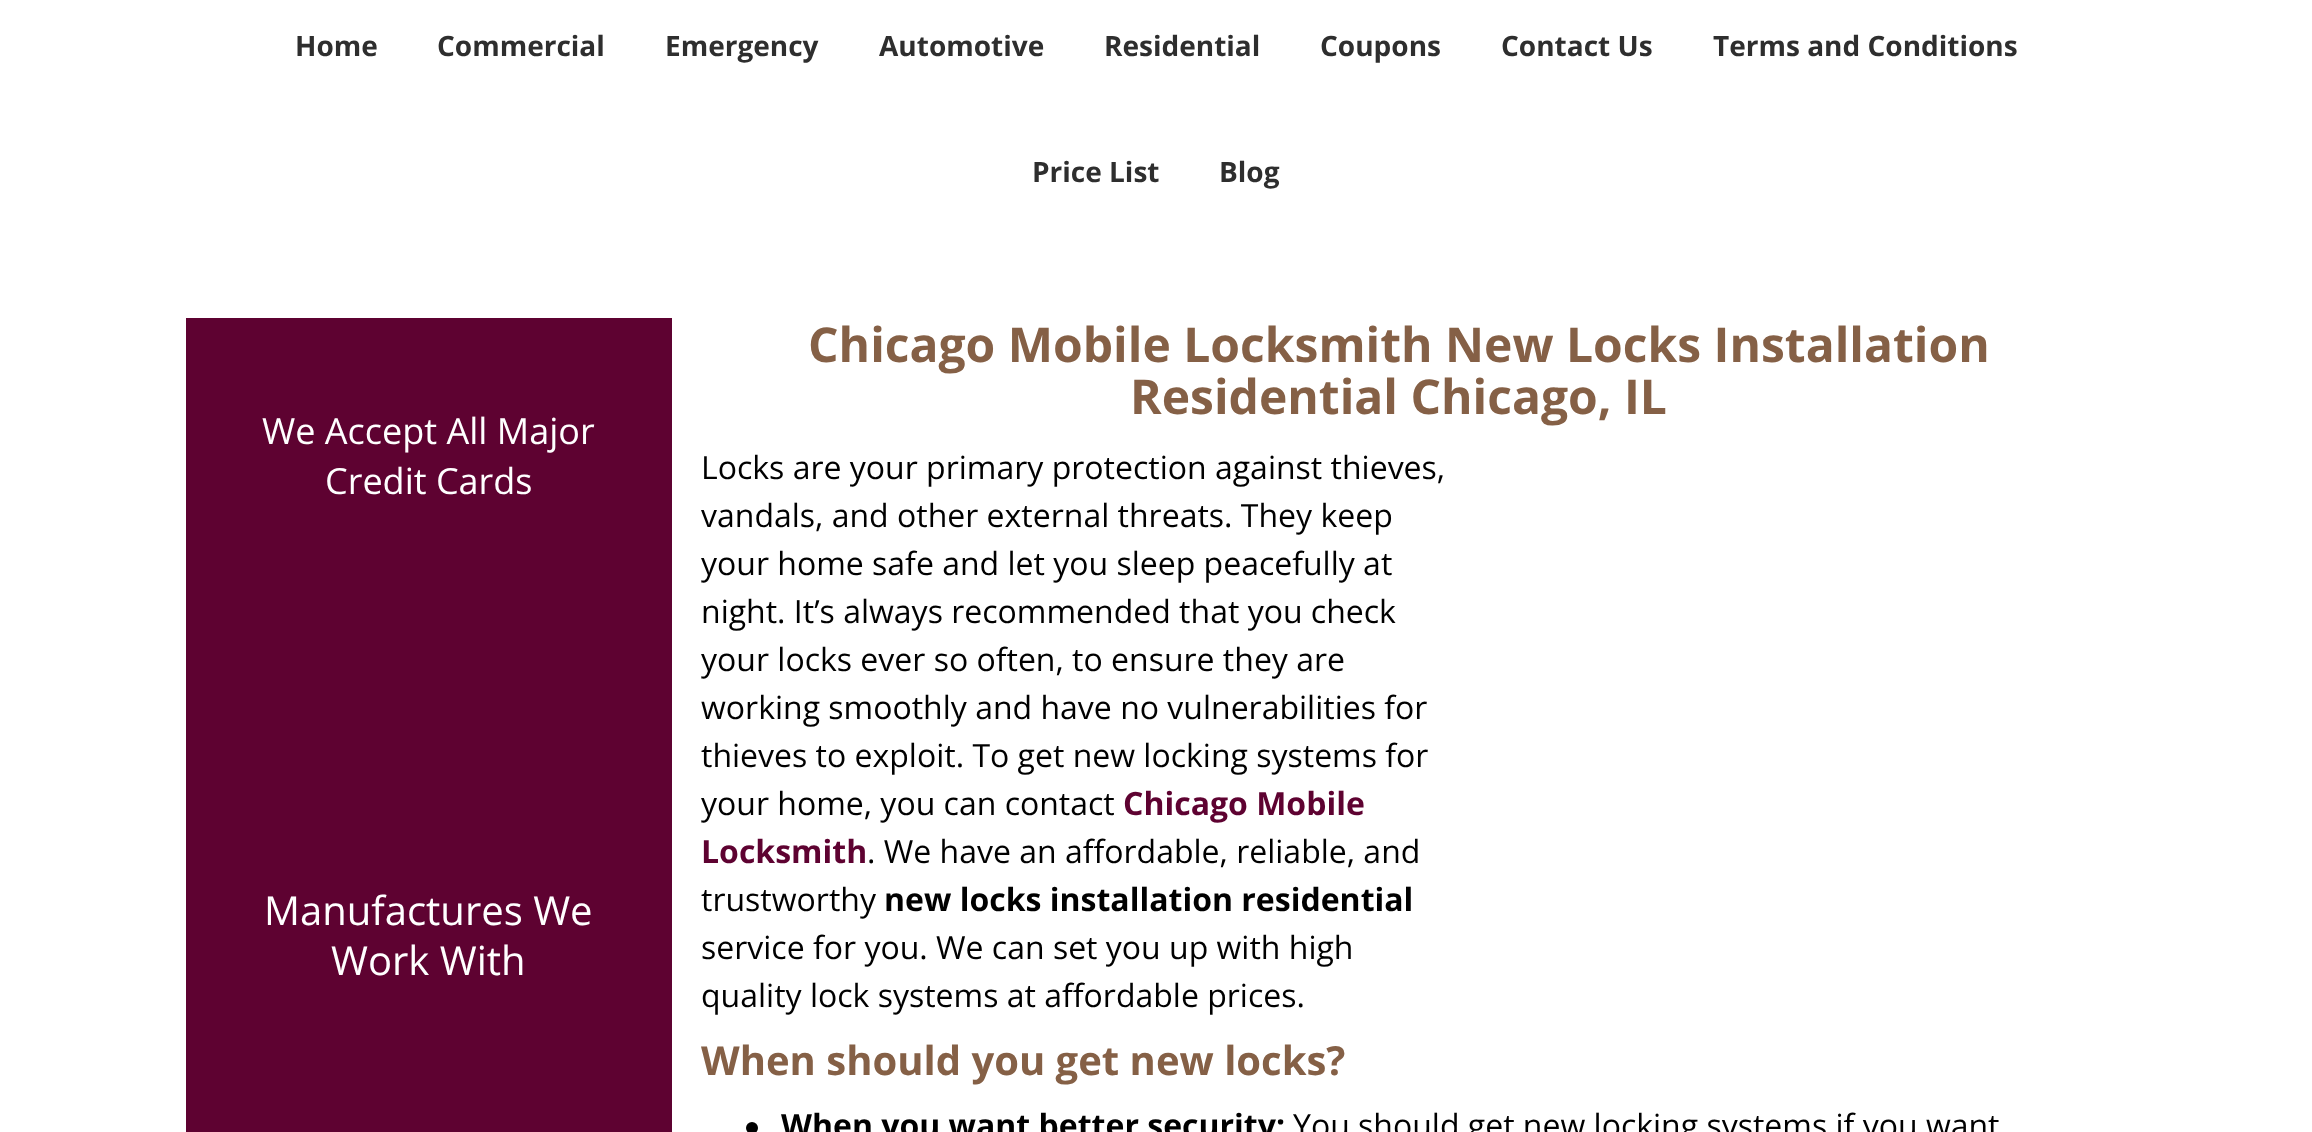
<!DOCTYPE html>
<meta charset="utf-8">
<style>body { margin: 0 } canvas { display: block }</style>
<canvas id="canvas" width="2312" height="1132"></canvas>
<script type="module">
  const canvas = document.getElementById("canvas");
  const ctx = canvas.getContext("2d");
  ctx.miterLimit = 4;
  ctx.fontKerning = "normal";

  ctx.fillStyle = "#ffffff";
  ctx.fillRect(0, 0, 2312, 1132);
  ctx.font = "bold 28px Open Sans";
  ctx.fillStyle = "#2e2e2e";
  ctx.fillText("Home", 295, 56);
  ctx.fillText("Commercial", 437, 56);
  ctx.fillText("Emergency", 665, 56);
  ctx.fillText("Automotive", 879, 56);
  ctx.fillText("Residential", 1104, 56);
  ctx.fillText("Coupons", 1320, 56);
  ctx.fillText("Contact Us", 1501, 56);
  ctx.fillText("Terms and Conditions", 1713, 56);
  ctx.fillText("Price List", 1032, 182);
  ctx.fillText("Blog", 1219, 182);
  ctx.fillStyle = "#5e0231";
  ctx.fillRect(186, 318, 486, 814);
  ctx.font = "36px Open Sans";
  ctx.fillStyle = "#ffffff";
  ctx.fillText("We Accept All Major", 262, 444);
  ctx.fillText("Credit Cards", 325, 494);
  ctx.font = "40px Open Sans";
  ctx.fillText("Manufactures We", 264, 925);
  ctx.fillText("Work With", 331, 975);
  ctx.font = "bold 48px Open Sans";
  ctx.fillStyle = "#856046";
  ctx.fillText("Chicago Mobile Locksmith New Locks Installation", 808, 362);
  ctx.fillText("Residential Chicago, IL", 1130, 414);
  ctx.font = "32px Open Sans";
  ctx.fillStyle = "#000000";
  ctx.fillText("Locks are your primary protection against thieves,", 701, 479);
  ctx.fillText("vandals, and other external threats. They keep", 701, 527);
  ctx.fillText("your home safe and let you sleep peacefully at", 701, 575);
  ctx.fillText("night. It’s always recommended that you check", 701, 623);
  ctx.fillText("your locks ever so often, to ensure they are", 701, 671);
  ctx.fillText("working smoothly and have no vulnerabilities for", 701, 719);
  ctx.fillText("thieves to exploit. To get new locking systems for", 701, 767);
  ctx.fillText("your home, you can contact", 701, 815);
  ctx.font = "bold 32px Open Sans";
  ctx.fillStyle = "#5e0231";
  ctx.fillText("Chicago Mobile", 1123, 815);
  ctx.fillText("Locksmith", 701, 863);
  ctx.font = "32px Open Sans";
  ctx.fillStyle = "#000000";
  ctx.fillText(". We have an affordable, reliable, and", 867, 863);
  ctx.fillText("trustworthy", 701, 911);
  ctx.font = "bold 32px Open Sans";
  ctx.fillText("new locks installation residential", 884, 911);
  ctx.font = "32px Open Sans";
  ctx.fillText("service for you. We can set you up with high", 701, 959);
  ctx.fillText("quality lock systems at affordable prices.", 701, 1007);
  ctx.font = "bold 40px Open Sans";
  ctx.fillStyle = "#856046";
  ctx.fillText("When should you get new locks?", 701, 1075);
  ctx.fillStyle = "#000000";
  ctx.beginPath();
  ctx.arc(752, 1128, 6, 0, Math.PI * 2);
  ctx.fill();
  ctx.font = "bold 32px Open Sans";
  ctx.fillText("When you want better security:", 781, 1137);
  ctx.font = "32px Open Sans";
  ctx.fillText("You should get new locking systems if you want", 1293, 1137);
</script>
